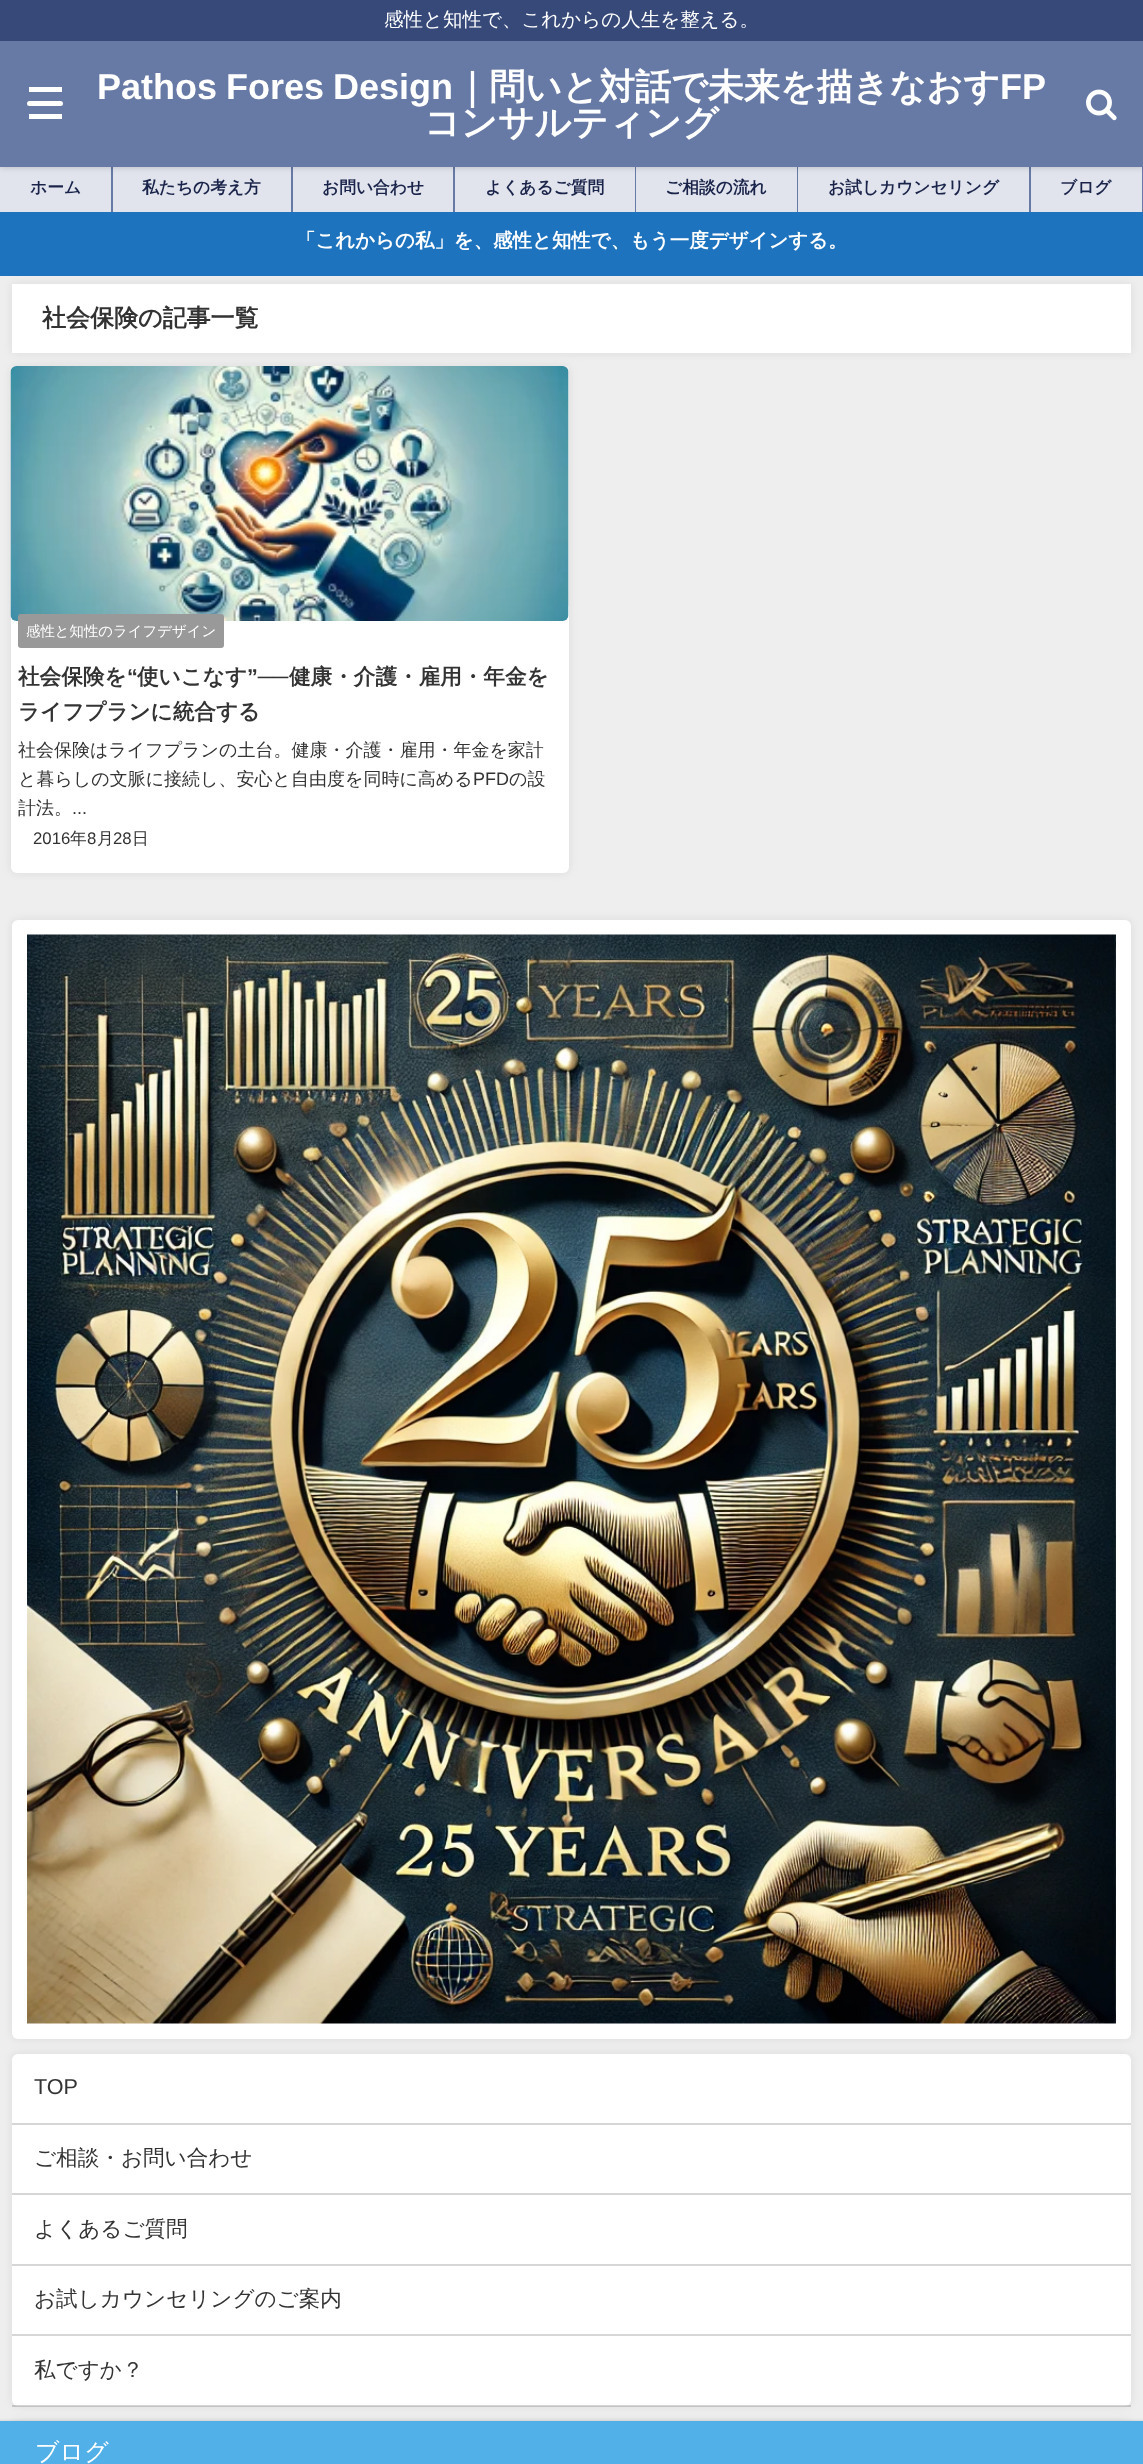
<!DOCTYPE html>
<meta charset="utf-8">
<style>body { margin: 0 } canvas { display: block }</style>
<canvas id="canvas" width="1143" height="2464"></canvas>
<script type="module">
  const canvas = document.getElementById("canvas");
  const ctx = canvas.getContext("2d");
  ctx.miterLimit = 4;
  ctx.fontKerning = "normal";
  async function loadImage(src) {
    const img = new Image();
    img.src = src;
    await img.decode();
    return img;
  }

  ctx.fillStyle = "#eeeeee";
  ctx.fillRect(0, 0, 1143, 2464);
  ctx.fillStyle = "#6779a5";
  ctx.fillRect(111, 167, 1032, 45);
  ctx.fillStyle = "#e1e4ed";
  ctx.fillRect(0, 167, 111, 45);
  ctx.fillRect(113, 167, 178, 45);
  ctx.fillRect(293, 167, 160, 45);
  ctx.fillRect(455, 167, 180, 45);
  ctx.fillRect(636, 167, 161, 45);
  ctx.fillRect(798, 167, 231, 45);
  ctx.fillRect(1031, 167, 111, 45);
  ctx.fillStyle = "rgba(0, 0, 0, 0.2)";
  ctx.filter = "blur(3px)";
  ctx.beginPath();
  ctx.rect(0, 0, 1143, 167);
  ctx.fill();
  ctx.filter = "none";
  ctx.fillStyle = "#6779a5";
  ctx.fillRect(0, 41, 1143, 126);
  ctx.fillStyle = "#364979";
  ctx.fillRect(0, 0, 1143, 41);
  ctx.font = "500 19.5px WenQuanYi Zen Hei";
  ctx.fillStyle = "#ffffff";
  ctx.fillText("感性と知性で、これからの人生を整える。", 384, 26);
  ctx.fillRect(29, 87, 33, 5);
  ctx.beginPath();
  ctx.roundRect(27, 101, 36, 5, 2.5);
  ctx.fill();
  ctx.fillRect(29, 114, 33, 5);
  ctx.wordSpacing = "-1px";
  ctx.font = "bold 36px Liberation Sans";
  ctx.fillText("Pathos Fores Design", 97, 99);
  ctx.wordSpacing = "0px";
  ctx.font = "bold 36px WenQuanYi Zen Hei";
  ctx.fillText("｜問いと対話で未来を描きなおす", 454, 99);
  ctx.font = "bold 36px Liberation Sans";
  ctx.fillText("FP", 1000, 99);
  ctx.font = "bold 36px WenQuanYi Zen Hei";
  ctx.fillText("コンサルティング", 424, 135);
  ctx.drawImage(await loadImage("img1.png"), 1086, 89, 31, 32);
  ctx.font = "bold 16.75px WenQuanYi Zen Hei";
  ctx.fillStyle = "#1a244a";
  ctx.fillText("ホーム", 30, 193);
  ctx.fillText("私たちの考え方", 142, 193);
  ctx.fillText("お問い合わせ", 322, 193);
  ctx.fillText("よくあるご質問", 485, 193);
  ctx.fillText("ご相談の流れ", 665, 193);
  ctx.fillText("お試しカウンセリング", 828, 193);
  ctx.fillText("ブログ", 1060, 193);
  ctx.fillStyle = "#1e73be";
  ctx.fillRect(0, 212, 1143, 64);
  ctx.font = "bold 19.45px WenQuanYi Zen Hei";
  ctx.fillStyle = "#ffffff";
  ctx.fillText("「これからの私」を、感性と知性で、もう一度デザインする。", 296, 247);
  ctx.fillStyle = "rgba(150, 150, 150, 0.2)";
  ctx.filter = "blur(4px)";
  ctx.beginPath();
  ctx.rect(12, 284, 1119, 69);
  ctx.fill();
  ctx.filter = "none";
  ctx.fillStyle = "#ffffff";
  ctx.fillRect(12, 284, 1119, 69);
  ctx.font = "bold 24px WenQuanYi Zen Hei";
  ctx.fillStyle = "#333333";
  ctx.fillText("社会保険の記事一覧", 42, 326);
  ctx.fillStyle = "rgba(150, 150, 150, 0.2)";
  ctx.filter = "blur(4px)";
  ctx.beginPath();
  ctx.roundRect(11, 366, 558, 507, 6);
  ctx.fill();
  ctx.filter = "none";
  ctx.fillStyle = "#ffffff";
  ctx.beginPath();
  ctx.roundRect(11, 366, 558, 507, 6);
  ctx.fill();
  ctx.fillStyle = "#eeeeee";
  ctx.fillRect(11, 366, 558, 240);
  ctx.drawImage(await loadImage("img2.png"), 10, 366, 559, 255);
  ctx.fillStyle = "#999999";
  ctx.beginPath();
  ctx.roundRect(18, 614, 206, 34, 3);
  ctx.fill();
  ctx.font = "500 14.4px WenQuanYi Zen Hei";
  ctx.fillStyle = "#ffffff";
  ctx.fillText("感性と知性のライフデザイン", 26, 636);
  ctx.font = "bold 21.6px WenQuanYi Zen Hei";
  ctx.fillStyle = "#333333";
  ctx.fillText("社会保険を", 18, 684);
  ctx.font = "bold 21.6px Liberation Sans";
  ctx.fillText("“", 127, 684);
  ctx.font = "bold 21.6px WenQuanYi Zen Hei";
  ctx.fillText("使いこなす", 137, 684);
  ctx.font = "bold 21.6px Liberation Sans";
  ctx.fillText("”──", 247, 684);
  ctx.font = "bold 21.6px WenQuanYi Zen Hei";
  ctx.fillText("健康・介護・雇用・年金を", 289, 684);
  ctx.fillText("ライフプランに統合する", 18, 719);
  ctx.font = "500 18px WenQuanYi Zen Hei";
  ctx.fillText("社会保険はライフプランの土台。健康・介護・雇用・年金を家計", 18, 756);
  ctx.fillText("と暮らしの文脈に接続し、安心と自由度を同時に高める", 18, 785);
  ctx.font = "18px Liberation Sans";
  ctx.fillText("PFD", 473, 785);
  ctx.font = "500 18px WenQuanYi Zen Hei";
  ctx.fillText("の設", 509, 785);
  ctx.fillText("計法。", 18, 814);
  ctx.font = "18px Liberation Sans";
  ctx.fillText("...", 72, 814);
  ctx.font = "16.75px Liberation Sans";
  ctx.fillText("2016", 33, 844);
  ctx.font = "500 16.75px WenQuanYi Zen Hei";
  ctx.fillText("年", 70, 844);
  ctx.font = "16.75px Liberation Sans";
  ctx.fillText("8", 87, 844);
  ctx.font = "500 16.75px WenQuanYi Zen Hei";
  ctx.fillText("月", 97, 844);
  ctx.font = "16.75px Liberation Sans";
  ctx.fillText("28", 113, 844);
  ctx.font = "500 16.75px WenQuanYi Zen Hei";
  ctx.fillText("日", 132, 844);
  ctx.fillStyle = "rgba(150, 150, 150, 0.2)";
  ctx.filter = "blur(4px)";
  ctx.beginPath();
  ctx.roundRect(12, 920, 1119, 1119, 6);
  ctx.fill();
  ctx.filter = "none";
  ctx.fillStyle = "#ffffff";
  ctx.beginPath();
  ctx.roundRect(12, 920, 1119, 1119, 6);
  ctx.fill();
  ctx.drawImage(await loadImage("img3.png"), 27, 934, 1089, 1090);
  ctx.fillStyle = "rgba(150, 150, 150, 0.2)";
  ctx.filter = "blur(4px)";
  ctx.beginPath();
  ctx.roundRect(12, 2054, 1119, 352, 6);
  ctx.fill();
  ctx.filter = "none";
  ctx.fillStyle = "#ffffff";
  ctx.beginPath();
  ctx.roundRect(12, 2054, 1119, 352, 6);
  ctx.fill();
  ctx.fillStyle = "#d6d6d6";
  ctx.fillRect(12, 2123, 1119, 2);
  ctx.font = "21.6px Liberation Sans";
  ctx.fillStyle = "#333333";
  ctx.fillText("TOP", 34, 2094);
  ctx.fillStyle = "#d6d6d6";
  ctx.fillRect(12, 2193, 1119, 2);
  ctx.font = "500 21.6px WenQuanYi Zen Hei";
  ctx.fillStyle = "#333333";
  ctx.fillText("ご相談・お問い合わせ", 34, 2165);
  ctx.fillStyle = "#d6d6d6";
  ctx.fillRect(12, 2264, 1119, 2);
  ctx.fillStyle = "#333333";
  ctx.fillText("よくあるご質問", 34, 2236);
  ctx.fillStyle = "#d6d6d6";
  ctx.fillRect(12, 2334, 1119, 2);
  ctx.fillStyle = "#333333";
  ctx.fillText("お試しカウンセリングのご案内", 34, 2306);
  ctx.fillStyle = "rgba(50, 50, 50, 0.2)";
  ctx.fillRect(12, 2405, 1119, 2);
  ctx.fillStyle = "#333333";
  ctx.fillText("私ですか？", 34, 2377);
  ctx.fillStyle = "rgba(150, 150, 150, 0.2)";
  ctx.filter = "blur(4px)";
  ctx.beginPath();
  ctx.roundRect(12, 2421, 1119, 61, 6);
  ctx.fill();
  ctx.filter = "none";
  ctx.fillStyle = "#777777";
  ctx.filter = "blur(2px)";
  ctx.beginPath();
  ctx.rect(-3, 2423, 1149, 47);
  ctx.fill();
  ctx.filter = "none";
  ctx.fillStyle = "#51b0e8";
  ctx.fillRect(0, 2421, 1143, 43);
  ctx.font = "500 24px WenQuanYi Zen Hei";
  ctx.fillStyle = "#ffffff";
  ctx.fillText("ブログ", 35, 2460);
</script>
